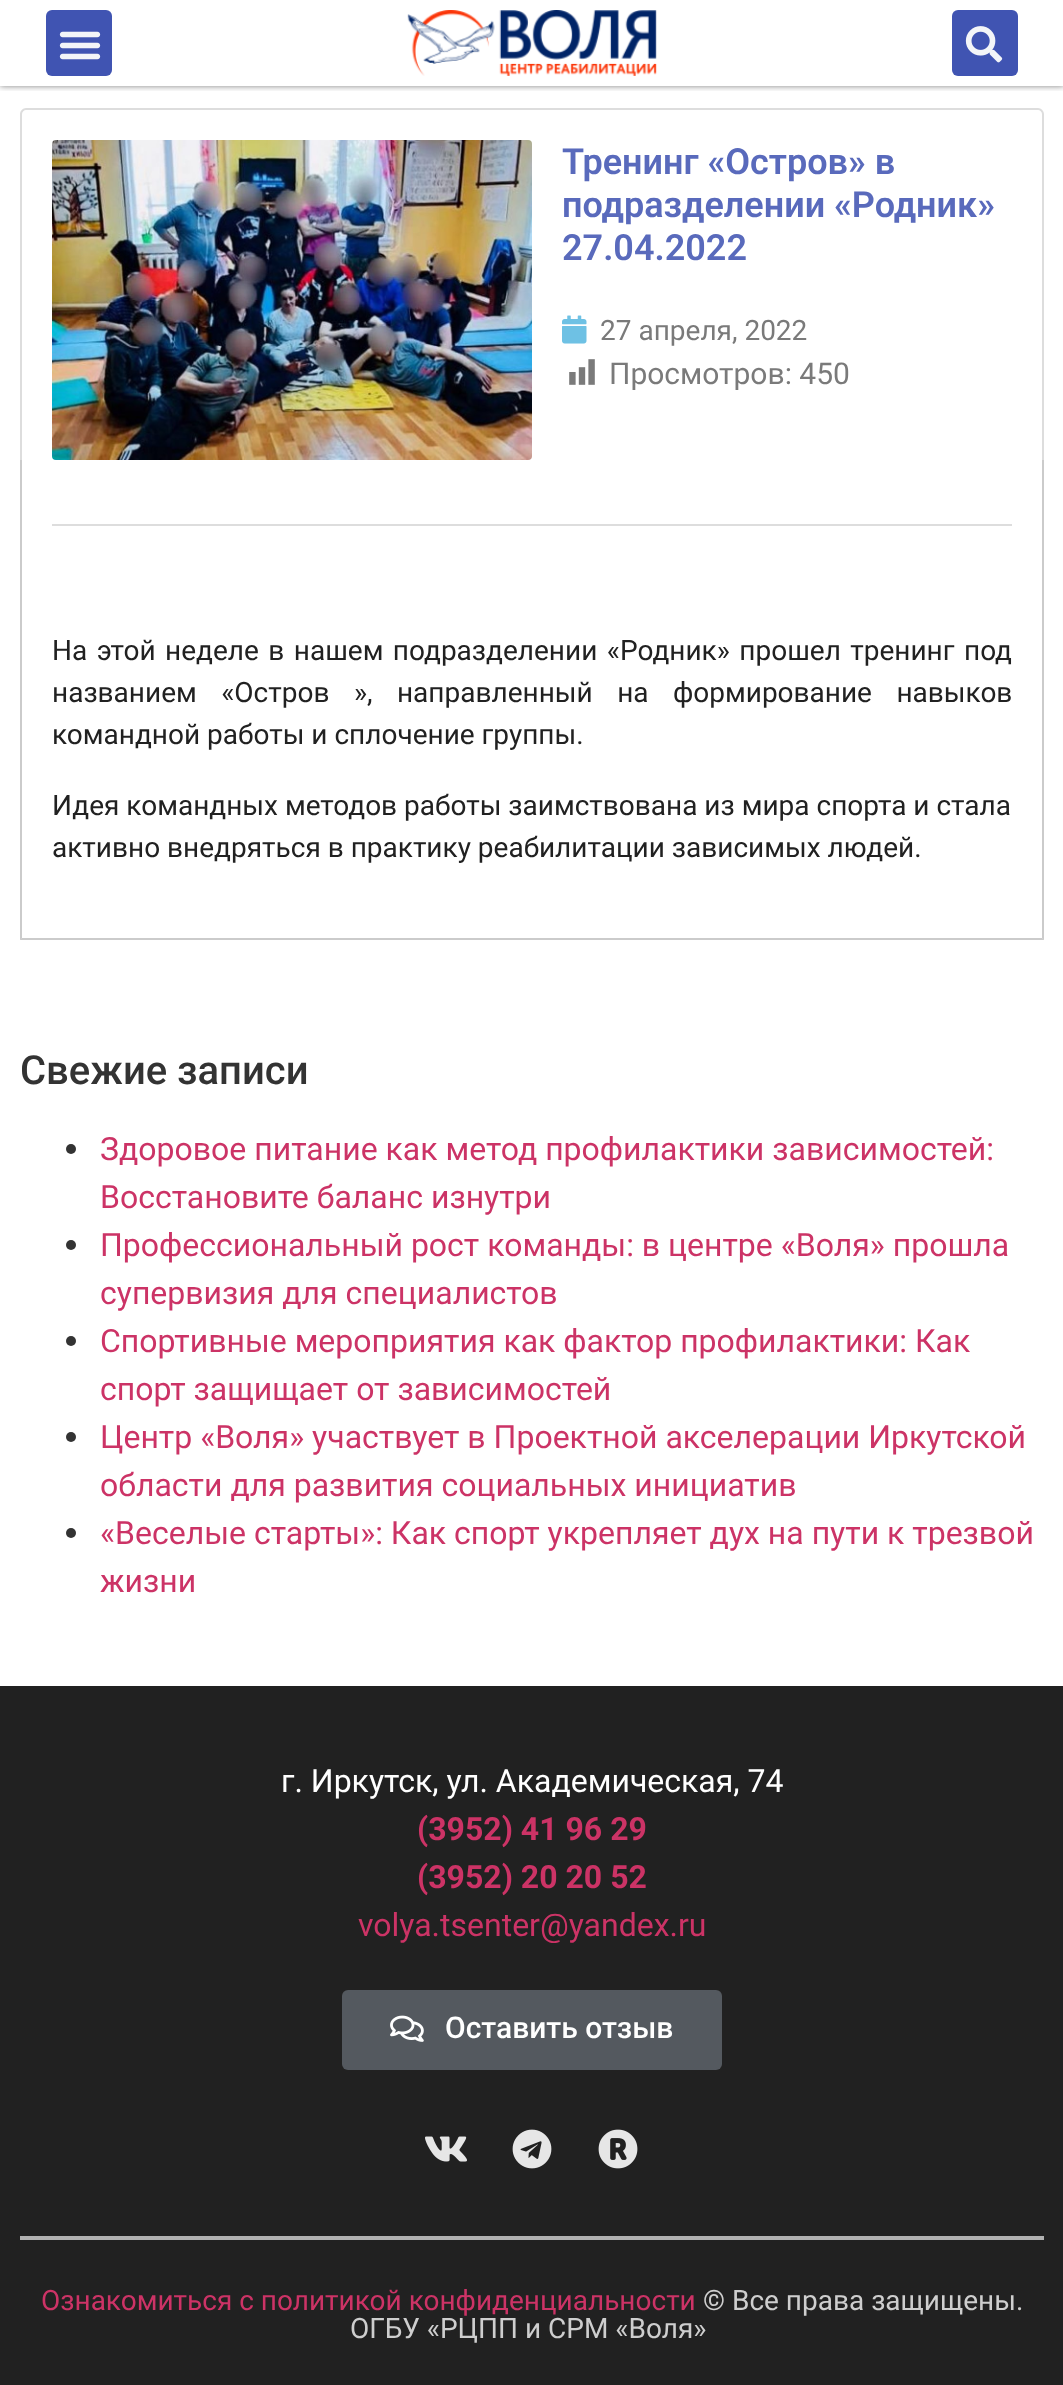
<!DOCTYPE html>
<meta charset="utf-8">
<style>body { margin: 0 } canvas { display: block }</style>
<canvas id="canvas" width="1063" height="2385"></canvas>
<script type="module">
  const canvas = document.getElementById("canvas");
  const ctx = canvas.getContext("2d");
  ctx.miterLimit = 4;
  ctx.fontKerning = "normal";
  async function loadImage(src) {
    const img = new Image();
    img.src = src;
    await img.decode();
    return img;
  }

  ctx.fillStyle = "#ffffff";
  ctx.fillRect(0, 0, 1063, 2385);
  ctx.save();
  ctx.beginPath();
  ctx.rect(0, 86, 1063, 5);
  ctx.clip();
  ctx.fillStyle = "rgba(0, 0, 0, 0.5)";
  ctx.filter = "blur(3px)";
  ctx.beginPath();
  ctx.rect(0, 0, 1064, 86);
  ctx.fill();
  ctx.filter = "none";
  ctx.restore();
  ctx.fillStyle = "#4054b2";
  ctx.beginPath();
  ctx.roundRect(46, 10, 66, 66, 6);
  ctx.fill();
  ctx.drawImage(await loadImage("img1.png"), 59, 31, 42, 29);
  ctx.drawImage(await loadImage("img2.png"), 407, 10, 250, 66);
  ctx.beginPath();
  ctx.roundRect(952, 10, 66, 66, 6);
  ctx.fill();
  ctx.drawImage(await loadImage("img3.png"), 965, 26, 38, 37);
  ctx.fillStyle = "#dddddd";
  ctx.beginPath();
  ctx.moveTo(26, 108);
  ctx.lineTo(1038, 108);
  ctx.bezierCurveTo(1041, 108, 1044, 111, 1044, 114);
  ctx.lineTo(1044, 460);
  ctx.lineTo(20, 460);
  ctx.lineTo(20, 114);
  ctx.bezierCurveTo(20, 111, 23, 108, 26, 108);
  ctx.closePath();
  ctx.moveTo(26, 110);
  ctx.lineTo(1038, 110);
  ctx.bezierCurveTo(1040, 110, 1042, 112, 1042, 114);
  ctx.lineTo(1042, 460);
  ctx.lineTo(22, 460);
  ctx.lineTo(22, 114);
  ctx.bezierCurveTo(22, 112, 24, 110, 26, 110);
  ctx.closePath();
  ctx.fill("evenodd");
  ctx.drawImage(await loadImage("img4.png"), 52, 140, 480, 320);
  ctx.font = "600 36px Roboto";
  ctx.fillStyle = "#596abc";
  ctx.fillText("Тренинг «Остров» в", 562, 174);
  ctx.fillText("подразделении «Родник»", 562, 217);
  ctx.fillText("27.04.2022", 562, 260);
  ctx.drawImage(await loadImage("img5.png"), 562, 315, 25, 29);
  ctx.font = "28px Roboto";
  ctx.fillStyle = "#7a7a7a";
  ctx.fillText("27 апреля, 2022", 600, 340);
  ctx.drawImage(await loadImage("img6.png"), 569, 359, 26, 26);
  ctx.font = "30px Roboto";
  ctx.fillText("Просмотров: 450", 609, 384);
  ctx.fillStyle = "#cbcbcb";
  ctx.beginPath();
  ctx.moveTo(1044, 460);
  ctx.lineTo(1044, 940);
  ctx.lineTo(1042, 938);
  ctx.lineTo(1042, 460);
  ctx.closePath();
  ctx.fill();
  ctx.fillStyle = "rgba(122, 122, 122, 0.39)";
  ctx.beginPath();
  ctx.moveTo(1044, 940);
  ctx.lineTo(20, 940);
  ctx.lineTo(22, 938);
  ctx.lineTo(1042, 938);
  ctx.closePath();
  ctx.fill();
  ctx.beginPath();
  ctx.moveTo(20, 940);
  ctx.lineTo(20, 460);
  ctx.lineTo(22, 460);
  ctx.lineTo(22, 938);
  ctx.closePath();
  ctx.fill();
  ctx.fillStyle = "#dddddd";
  ctx.fillRect(52, 524, 960, 2);
  ctx.wordSpacing = "2.5px";
  ctx.font = "28px Roboto";
  ctx.fillStyle = "#212121";
  ctx.fillText("На этой неделе в нашем подразделении «Родник» прошел тренинг под", 52, 660);
  ctx.wordSpacing = "17.5px";
  ctx.fillText("названием «Остров », направленный на формирование навыков", 52, 702);
  ctx.wordSpacing = "0px";
  ctx.fillText("командной работы и сплочение группы.", 52, 744);
  ctx.fillText("Идея командных методов работы заимствована из мира спорта и стала", 52, 815);
  ctx.fillText("активно внедряться в практику реабилитации зависимых людей.", 52, 857);
  ctx.font = "500 40px Roboto";
  ctx.fillStyle = "#333333";
  ctx.fillText("Свежие записи", 20, 1084);
  ctx.beginPath();
  ctx.arc(71, 1149, 5, 0, Math.PI * 2);
  ctx.fill();
  ctx.font = "32px Roboto";
  ctx.fillStyle = "#cc3366";
  ctx.fillText("Здоровое питание как метод профилактики зависимостей:", 100, 1160);
  ctx.fillText("Восстановите баланс изнутри", 100, 1208);
  ctx.fillStyle = "#333333";
  ctx.beginPath();
  ctx.arc(71, 1245, 5, 0, Math.PI * 2);
  ctx.fill();
  ctx.fillStyle = "#cc3366";
  ctx.fillText("Профессиональный рост команды: в центре «Воля» прошла", 100, 1256);
  ctx.fillText("супервизия для специалистов", 100, 1304);
  ctx.fillStyle = "#333333";
  ctx.beginPath();
  ctx.arc(71, 1341, 5, 0, Math.PI * 2);
  ctx.fill();
  ctx.fillStyle = "#cc3366";
  ctx.fillText("Спортивные мероприятия как фактор профилактики: Как", 100, 1352);
  ctx.fillText("спорт защищает от зависимостей", 100, 1400);
  ctx.fillStyle = "#333333";
  ctx.beginPath();
  ctx.arc(71, 1437, 5, 0, Math.PI * 2);
  ctx.fill();
  ctx.fillStyle = "#cc3366";
  ctx.fillText("Центр «Воля» участвует в Проектной акселерации Иркутской", 100, 1448);
  ctx.fillText("области для развития социальных инициатив", 100, 1496);
  ctx.fillStyle = "#333333";
  ctx.beginPath();
  ctx.arc(71, 1533, 5, 0, Math.PI * 2);
  ctx.fill();
  ctx.fillStyle = "#cc3366";
  ctx.fillText("«Веселые старты»: Как спорт укрепляет дух на пути к трезвой", 100, 1544);
  ctx.fillText("жизни", 100, 1592);
  ctx.fillStyle = "#212121";
  ctx.fillRect(0, 1686, 1063, 699);
  ctx.fillStyle = "#ffffff";
  ctx.fillText("г. Иркутск, ул. Академическая, 74", 281, 1792);
  ctx.font = "bold 32px Roboto";
  ctx.fillStyle = "#cc3366";
  ctx.fillText("(3952) 41 96 29", 417, 1840);
  ctx.fillText("(3952) 20 20 52", 417, 1888);
  ctx.font = "32px Roboto";
  ctx.fillText("volya.tsenter@yandex.ru", 358, 1936);
  ctx.fillStyle = "#54595f";
  ctx.beginPath();
  ctx.roundRect(342, 1990, 380, 80, 6);
  ctx.fill();
  ctx.drawImage(await loadImage("img7.png"), 390, 2015, 34, 27);
  ctx.font = "500 30px Roboto";
  ctx.fillStyle = "#ffffff";
  ctx.fillText("Оставить отзыв", 445, 2038);
  ctx.drawImage(await loadImage("img8.png"), 425, 2136, 42, 26);
  ctx.drawImage(await loadImage("img9.png"), 512, 2129, 40, 40);
  ctx.drawImage(await loadImage("img10.png"), 598, 2129, 40, 40);
  ctx.fillStyle = "#b1b1b1";
  ctx.fillRect(20, 2236, 1024, 4);
  ctx.font = "28px Roboto";
  ctx.fillStyle = "#cc3366";
  ctx.fillText("Ознакомиться с политикой конфиденциальности", 41, 2310);
  ctx.fillStyle = "#cecece";
  ctx.fillText("© Все права защищены.", 703, 2310);
  ctx.fillText("ОГБУ «РЦПП и СРМ «Воля»", 350, 2338);
</script>
